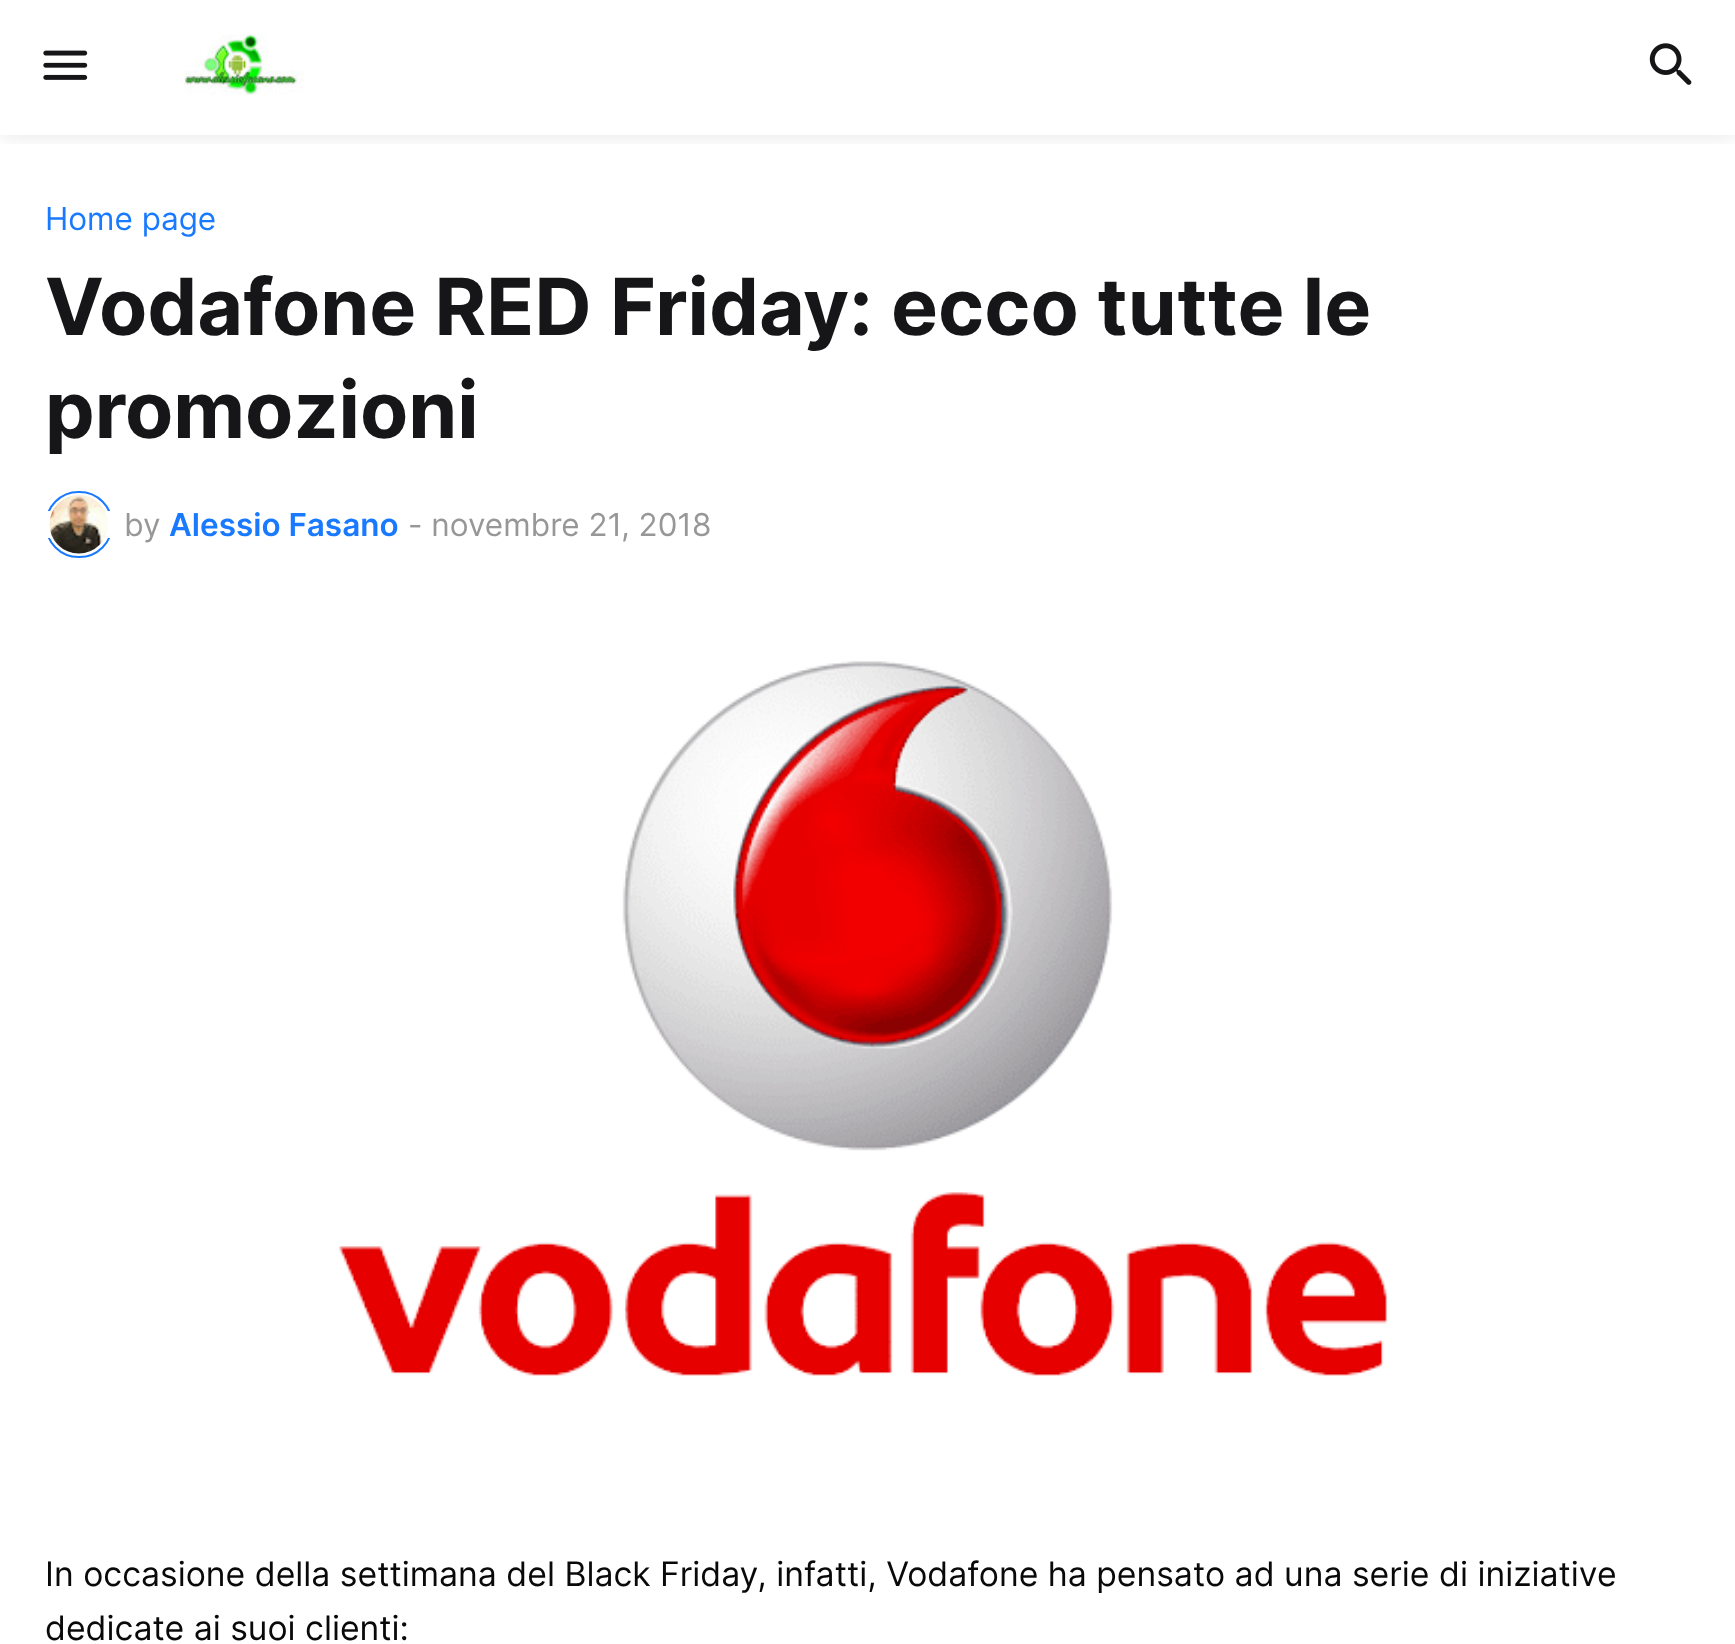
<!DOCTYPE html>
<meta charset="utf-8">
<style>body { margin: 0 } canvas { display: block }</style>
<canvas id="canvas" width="1735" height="1644"></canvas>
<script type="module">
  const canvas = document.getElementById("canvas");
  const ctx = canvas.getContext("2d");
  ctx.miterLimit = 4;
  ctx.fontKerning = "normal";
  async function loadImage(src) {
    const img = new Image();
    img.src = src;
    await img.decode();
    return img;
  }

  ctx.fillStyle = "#ffffff";
  ctx.fillRect(0, 0, 1735, 1644);
  ctx.save();
  ctx.beginPath();
  ctx.rect(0, 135, 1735, 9);
  ctx.clip();
  ctx.fillStyle = "rgba(0, 0, 0, 0.1)";
  ctx.filter = "blur(11px)";
  ctx.beginPath();
  ctx.rect(0, 0, 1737, 135);
  ctx.fill();
  ctx.filter = "none";
  ctx.restore();
  ctx.drawImage(await loadImage("img1.png"), 43, 50, 45, 30);
  ctx.drawImage(await loadImage("img2.png"), 184, 34, 120, 61);
  ctx.drawImage(await loadImage("img3.png"), 1649, 43, 43, 42);
  ctx.font = "31.5px Inter";
  ctx.fillStyle = "#1a7aff";
  ctx.fillText("Home page", 45, 230);
  ctx.font = "bold 78.75px Inter";
  ctx.fillStyle = "#161618";
  ctx.fillText("Vodafone RED Friday: ecco tutte le", 45, 335);
  ctx.fillText("promozioni", 45, 438);
  ctx.beginPath();
  ctx.roundRect(46, 492, 66, 65, 32.5);
  ctx.strokeStyle = "#1a7aff";
  ctx.lineWidth = 2;
  ctx.stroke();
  ctx.fillStyle = "#ffffff";
  ctx.fillRect(45, 511, 68, 27);
  ctx.drawImage(await loadImage("img4.png"), 49, 495, 59, 59);
  ctx.font = "31.5px Inter";
  ctx.fillStyle = "#979797";
  ctx.fillText("by", 124, 536);
  ctx.font = "600 31.5px Inter";
  ctx.fillStyle = "#1a7aff";
  ctx.fillText("Alessio Fasano", 169, 536);
  ctx.font = "31.5px Inter";
  ctx.fillStyle = "#979797";
  ctx.fillText("- novembre 21, 2018", 408, 536);
  ctx.drawImage(await loadImage("img5.png"), 339, 661, 1048, 715);
  ctx.font = "33.75px Inter";
  ctx.fillStyle = "#09090a";
  ctx.fillText("In occasione della settimana del Black Friday, infatti, Vodafone ha pensato ad una serie di iniziative", 45, 1586);
  ctx.fillText("dedicate ai suoi clienti:", 45, 1640);
</script>
